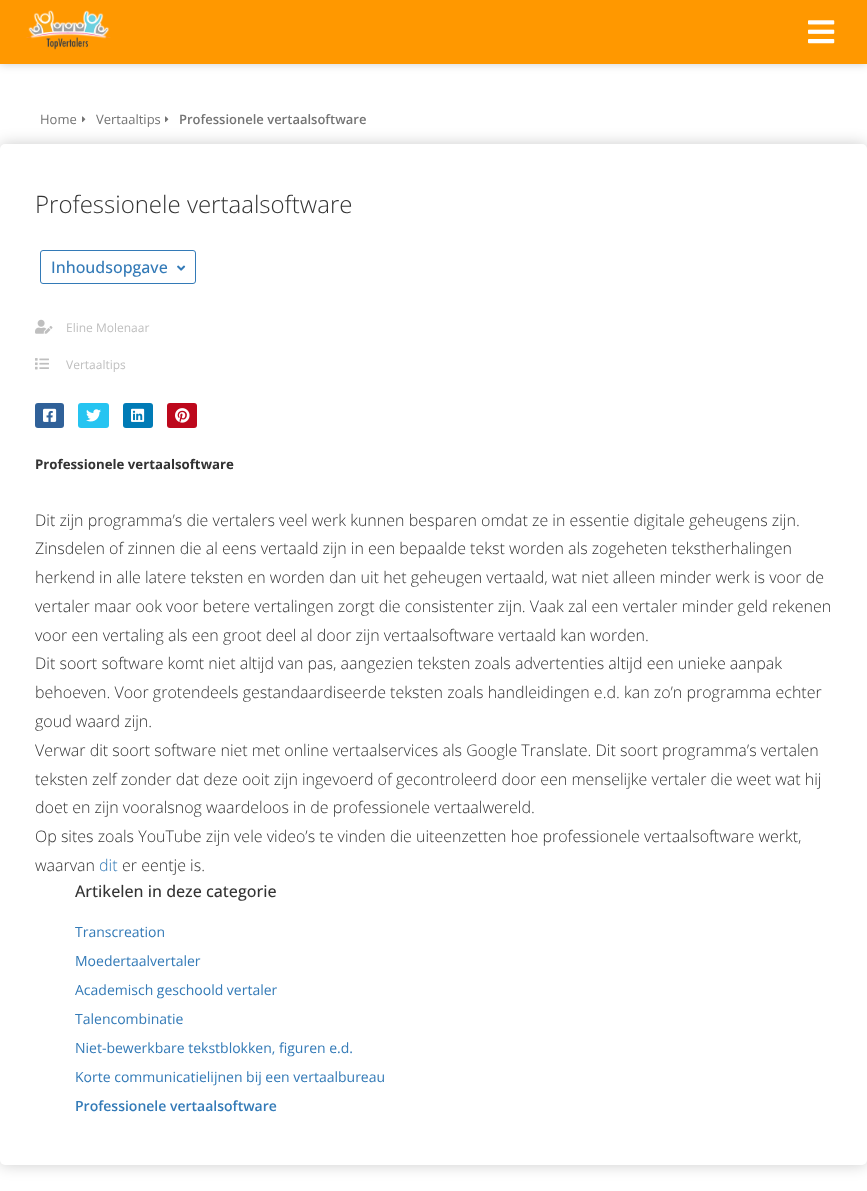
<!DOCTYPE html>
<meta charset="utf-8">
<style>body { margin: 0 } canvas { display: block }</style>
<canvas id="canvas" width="867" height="1191"></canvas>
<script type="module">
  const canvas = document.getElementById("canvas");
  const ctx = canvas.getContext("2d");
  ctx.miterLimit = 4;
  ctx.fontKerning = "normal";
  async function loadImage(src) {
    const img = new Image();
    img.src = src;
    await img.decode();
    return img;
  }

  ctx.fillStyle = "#ffffff";
  ctx.fillRect(0, 0, 867, 1191);
  ctx.fillStyle = "rgba(0, 0, 0, 0.2)";
  ctx.filter = "blur(5px)";
  ctx.beginPath();
  ctx.rect(0, 0, 867, 64);
  ctx.fill();
  ctx.filter = "none";
  ctx.fillStyle = "#ff9800";
  ctx.fillRect(0, 0, 867, 64);
  ctx.drawImage(await loadImage("img1.png"), 26, 10, 85, 40);
  ctx.drawImage(await loadImage("img2.png"), 808, 20, 27, 24);
  ctx.fillStyle = "rgba(0, 0, 0, 0.2)";
  ctx.filter = "blur(7.5px)";
  ctx.beginPath();
  ctx.roundRect(0, 144, 867, 1021, 5);
  ctx.fill();
  ctx.filter = "none";
  ctx.font = "13px Open Sans";
  ctx.fillStyle = "#747474";
  ctx.fillText("Home", 40, 124);
  ctx.drawImage(await loadImage("img3.png"), 82, 116, 4, 7);
  ctx.fillText("Vertaaltips", 96, 124);
  ctx.drawImage(await loadImage("img3.png"), 165, 116, 4, 7);
  ctx.font = "600 13px Open Sans";
  ctx.fillText("Professionele vertaalsoftware", 179, 124);
  ctx.fillStyle = "#ffffff";
  ctx.beginPath();
  ctx.roundRect(0, 144, 867, 1021, 5);
  ctx.fill();
  ctx.font = "300 24px Open Sans";
  ctx.fillStyle = "#333333";
  ctx.fillText("Professionele vertaalsoftware", 35, 213);
  ctx.beginPath();
  ctx.roundRect(40.5, 250.5, 155, 33, 2.5);
  ctx.strokeStyle = "#337ab7";
  ctx.stroke();
  ctx.font = "500 16px Open Sans";
  ctx.fillStyle = "#337ab7";
  ctx.fillText("Inhoudsopgave", 51, 273);
  ctx.drawImage(await loadImage("img4.png"), 177, 265, 9, 6);
  ctx.drawImage(await loadImage("img5.png"), 35, 319, 18, 15);
  ctx.font = "12px Open Sans";
  ctx.fillStyle = "#bfbfbf";
  ctx.fillText("Eline Molenaar", 66, 332);
  ctx.drawImage(await loadImage("img6.png"), 35, 358, 14, 12);
  ctx.fillText("Vertaaltips", 66, 369);
  ctx.fillStyle = "#306199";
  ctx.beginPath();
  ctx.roundRect(35, 403, 29, 25, 3);
  ctx.fill();
  ctx.drawImage(await loadImage("img7.png"), 43, 408, 14, 14);
  ctx.fillStyle = "#26c4f1";
  ctx.beginPath();
  ctx.roundRect(78, 403, 31, 25, 3);
  ctx.fill();
  ctx.drawImage(await loadImage("img8.png"), 86, 409, 15, 13);
  ctx.fillStyle = "#007bb6";
  ctx.beginPath();
  ctx.roundRect(123, 403, 30, 25, 3);
  ctx.fill();
  ctx.drawImage(await loadImage("img9.png"), 131, 408, 14, 14);
  ctx.fillStyle = "#bd081c";
  ctx.beginPath();
  ctx.roundRect(167, 403, 30, 25, 3);
  ctx.fill();
  ctx.drawImage(await loadImage("img10.png"), 175, 408, 15, 15);
  ctx.font = "bold 13.25px Open Sans";
  ctx.fillStyle = "#333333";
  ctx.fillText("Professionele vertaalsoftware", 35, 469);
  ctx.font = "300 16px Open Sans";
  ctx.fillText("Dit zijn programma’s die vertalers veel werk kunnen besparen omdat ze in essentie digitale geheugens zijn.", 35, 526);
  ctx.fillText("Zinsdelen of zinnen die al eens vertaald zijn in een bepaalde tekst worden als zogeheten tekstherhalingen", 35, 554);
  ctx.fillText("herkend in alle latere teksten en worden dan uit het geheugen vertaald, wat niet alleen minder werk is voor de", 35, 583);
  ctx.fillText("vertaler maar ook voor betere vertalingen zorgt die consistenter zijn. Vaak zal een vertaler minder geld rekenen", 35, 612);
  ctx.fillText("voor een vertaling als een groot deel al door zijn vertaalsoftware vertaald kan worden.", 35, 641);
  ctx.fillText("Dit soort software komt niet altijd van pas, aangezien teksten zoals advertenties altijd een unieke aanpak", 35, 669);
  ctx.fillText("behoeven. Voor grotendeels gestandaardiseerde teksten zoals handleidingen e.d. kan zo’n programma echter", 35, 698);
  ctx.fillText("goud waard zijn.", 35, 727);
  ctx.fillText("Verwar dit soort software niet met online vertaalservices als Google Translate. Dit soort programma’s vertalen", 35, 756);
  ctx.fillText("teksten zelf zonder dat deze ooit zijn ingevoerd of gecontroleerd door een menselijke vertaler die weet wat hij", 35, 785);
  ctx.fillText("doet en zijn vooralsnog waardeloos in de professionele vertaalwereld.", 35, 813);
  ctx.fillText("Op sites zoals YouTube zijn vele video’s te vinden die uiteenzetten hoe professionele vertaalsoftware werkt,", 35, 842);
  ctx.fillText("waarvan", 35, 871);
  ctx.fillStyle = "#337ab7";
  ctx.fillText("dit", 99, 871);
  ctx.fillStyle = "#333333";
  ctx.fillText("er eentje is.", 122, 871);
  ctx.font = "500 16px Open Sans";
  ctx.fillText("Artikelen in deze categorie", 75, 897);
  ctx.font = "14px Open Sans";
  ctx.fillStyle = "#337ab7";
  ctx.fillText("Transcreation", 75, 937);
  ctx.fillText("Moedertaalvertaler", 75, 966);
  ctx.fillText("Academisch geschoold vertaler", 75, 995);
  ctx.fillText("Talencombinatie", 75, 1024);
  ctx.fillText("Niet-bewerkbare tekstblokken, figuren e.d.", 75, 1053);
  ctx.fillText("Korte communicatielijnen bij een vertaalbureau", 75, 1082);
  ctx.font = "600 14px Open Sans";
  ctx.fillText("Professionele vertaalsoftware", 75, 1111);
</script>
